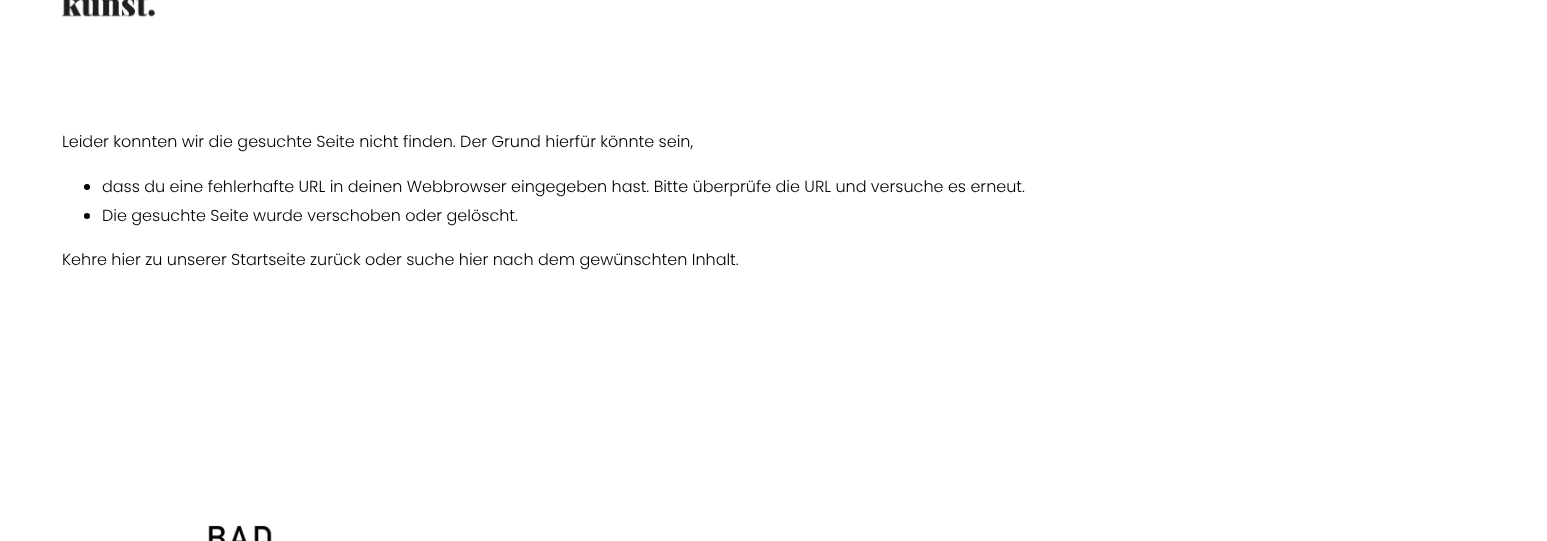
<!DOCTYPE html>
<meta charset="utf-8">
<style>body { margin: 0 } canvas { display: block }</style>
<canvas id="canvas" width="1547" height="541"></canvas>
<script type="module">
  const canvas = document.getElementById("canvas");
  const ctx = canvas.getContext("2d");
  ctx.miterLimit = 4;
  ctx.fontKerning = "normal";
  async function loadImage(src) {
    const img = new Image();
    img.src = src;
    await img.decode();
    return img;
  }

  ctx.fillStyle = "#ffffff";
  ctx.fillRect(0, 0, 1547, 541);
  ctx.drawImage(await loadImage("img1.png"), 62, 0, 93, 17);
  ctx.font = "300 16px Poppins";
  ctx.fillStyle = "#000000";
  ctx.fillText("Leider konnten wir die gesuchte Seite nicht finden. Der Grund hierfür könnte sein,", 62, 147);
  ctx.beginPath();
  ctx.arc(87, 187, 3, 0, Math.PI * 2);
  ctx.fill();
  ctx.fillText("dass du eine fehlerhafte URL in deinen Webbrowser eingegeben hast. Bitte überprüfe die URL und versuche es erneut.", 102, 192);
  ctx.beginPath();
  ctx.arc(87, 216, 3, 0, Math.PI * 2);
  ctx.fill();
  ctx.fillText("Die gesuchte Seite wurde verschoben oder gelöscht.", 102, 221);
  ctx.fillText("Kehre hier zu unserer Startseite zurück oder suche hier nach dem gewünschten Inhalt.", 62, 265);
  ctx.drawImage(await loadImage("img2.png"), 208, 525, 64, 16);
</script>
